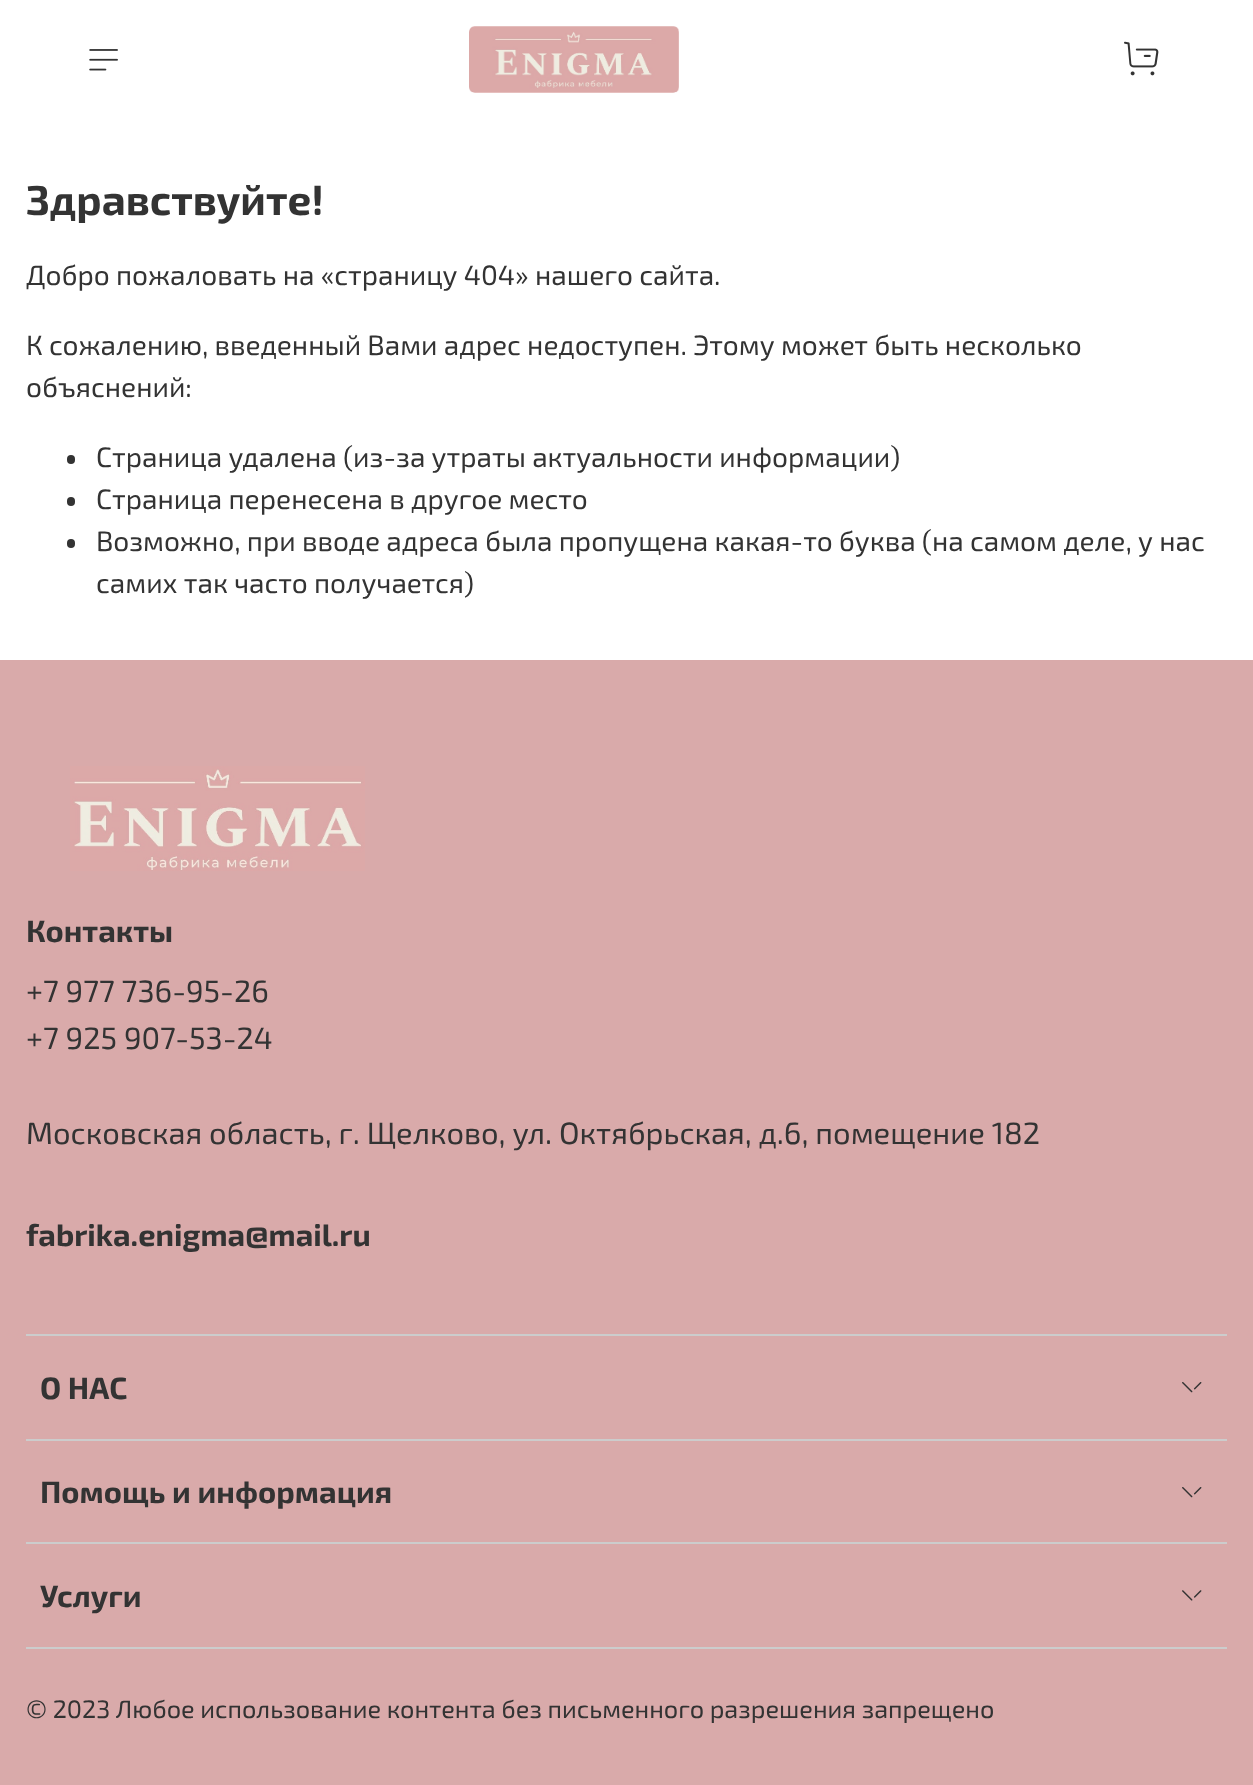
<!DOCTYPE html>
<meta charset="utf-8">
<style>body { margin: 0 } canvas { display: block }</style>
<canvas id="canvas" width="1253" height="1785"></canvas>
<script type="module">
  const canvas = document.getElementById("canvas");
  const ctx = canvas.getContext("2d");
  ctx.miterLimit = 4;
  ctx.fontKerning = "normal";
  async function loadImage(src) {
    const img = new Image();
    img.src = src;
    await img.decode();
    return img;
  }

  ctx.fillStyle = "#ffffff";
  ctx.fillRect(0, 0, 1253, 1785);
  ctx.drawImage(await loadImage("img1.png"), 89, 49, 29, 22);
  ctx.drawImage(await loadImage("img2.png"), 469, 26, 210, 67);
  ctx.drawImage(await loadImage("img3.png"), 1124, 41, 35, 35);
  ctx.font = "bold 42px 'Exo 2'";
  ctx.fillStyle = "#333333";
  ctx.fillText("Здравствуйте!", 26, 215);
  ctx.font = "28px 'Exo 2'";
  ctx.fillText("Добро пожаловать на «страницу 404» нашего сайта.", 26, 285);
  ctx.fillText("К сожалению, введенный Вами адрес недоступен. Этому может быть несколько", 26, 355);
  ctx.fillText("объяснений:", 26, 397);
  ctx.beginPath();
  ctx.roundRect(67, 455, 8, 9, 4);
  ctx.fill();
  ctx.fillText("Страница удалена (из-за утраты актуальности информации)", 96, 467);
  ctx.beginPath();
  ctx.roundRect(67, 497, 8, 9, 4);
  ctx.fill();
  ctx.fillText("Страница перенесена в другое место", 96, 509);
  ctx.beginPath();
  ctx.roundRect(67, 539, 8, 9, 4);
  ctx.fill();
  ctx.fillText("Возможно, при вводе адреса была пропущена какая-то буква (на самом деле, у нас", 96, 551);
  ctx.fillText("самих так часто получается)", 96, 593);
  ctx.fillStyle = "#d9aaaa";
  ctx.fillRect(0, 660, 1253, 1125);
  ctx.drawImage(await loadImage("img4.png"), 70, 766, 295, 105);
  ctx.font = "bold 30.8px 'Exo 2'";
  ctx.fillStyle = "#333333";
  ctx.fillText("Контакты", 26, 942);
  ctx.font = "30.8px 'Exo 2'";
  ctx.fillText("+7 977 736-95-26", 26, 1002);
  ctx.fillText("+7 925 907-53-24", 26, 1049);
  ctx.fillText("Московская область, г. Щелково, ул. Октябрьская, д.6, помещение 182", 26, 1144);
  ctx.font = "bold 30.8px 'Exo 2'";
  ctx.fillText("fabrika.enigma@mail.ru", 26, 1246);
  ctx.fillStyle = "#cccccc";
  ctx.fillRect(26, 1334, 1201, 2);
  ctx.fillStyle = "#333333";
  ctx.fillText("О НАС", 40, 1399);
  ctx.drawImage(await loadImage("img5.png"), 1182, 1382, 20, 11);
  ctx.fillStyle = "#cccccc";
  ctx.fillRect(26, 1439, 1201, 2);
  ctx.fillStyle = "#333333";
  ctx.fillText("Помощь и информация", 40, 1503);
  ctx.drawImage(await loadImage("img5.png"), 1182, 1487, 20, 11);
  ctx.fillStyle = "#cccccc";
  ctx.fillRect(26, 1542, 1201, 2);
  ctx.fillRect(26, 1647, 1201, 2);
  ctx.fillStyle = "#333333";
  ctx.fillText("Услуги", 40, 1607);
  ctx.drawImage(await loadImage("img6.png"), 1182, 1590, 20, 11);
  ctx.font = "25.2px 'Exo 2'";
  ctx.fillText("© 2023 Любое использование контента без письменного разрешения запрещено", 26, 1718);
</script>
